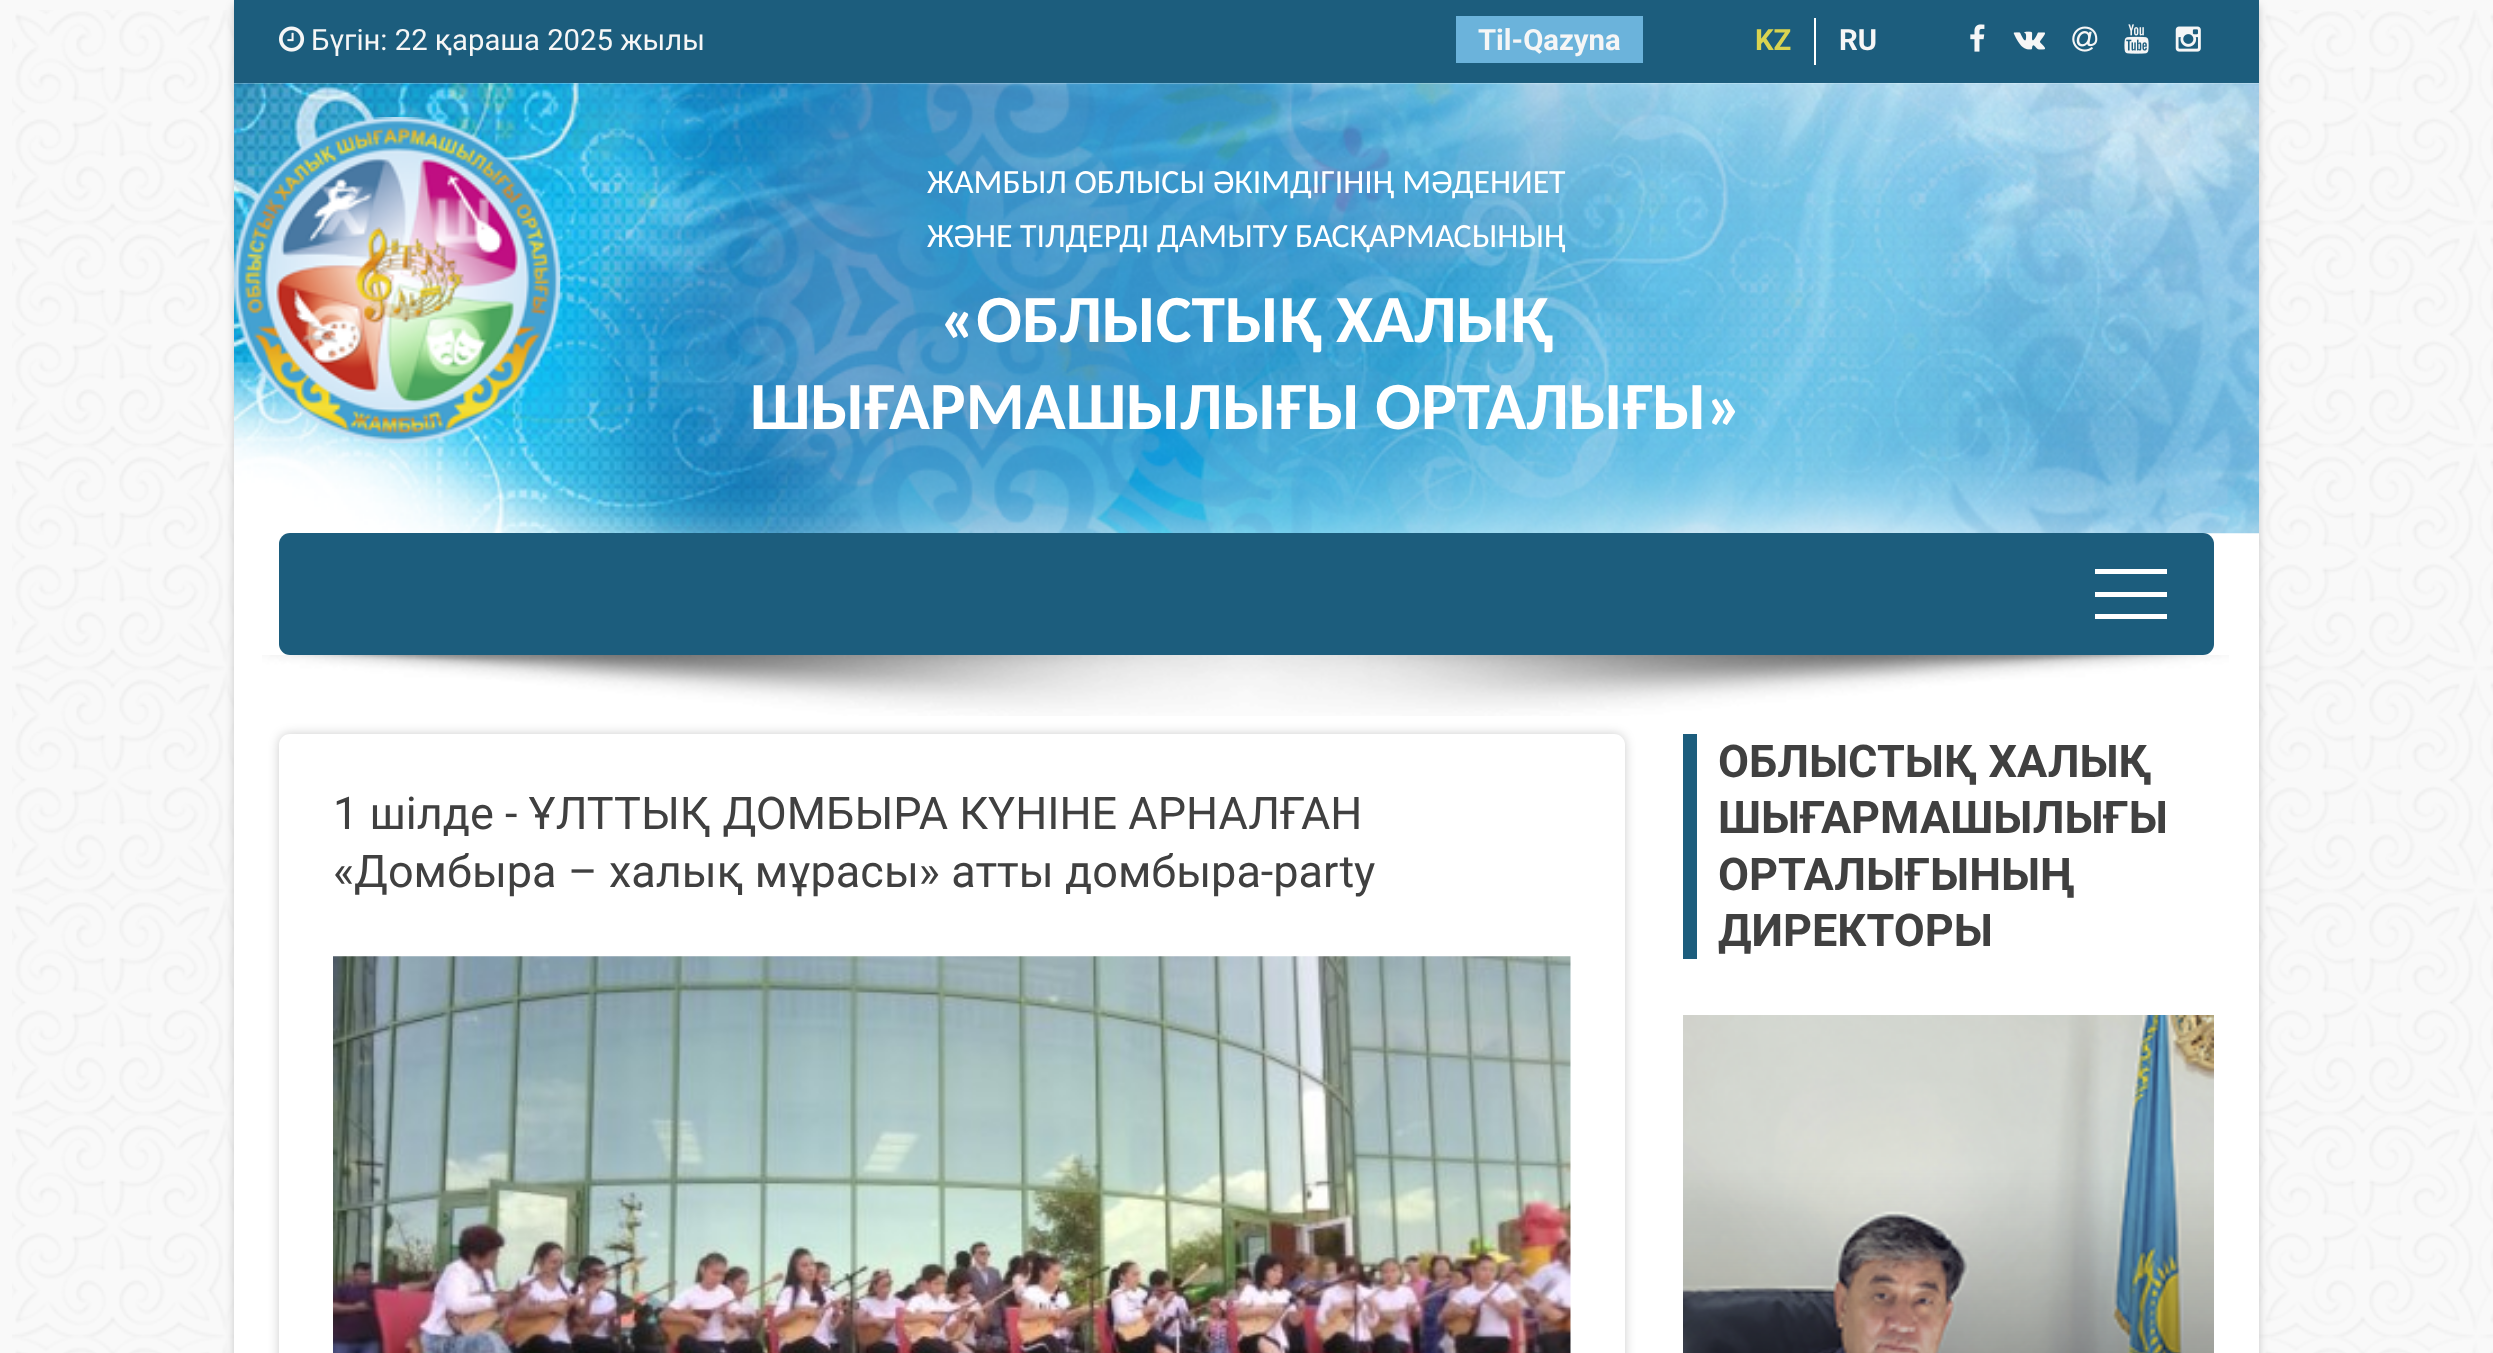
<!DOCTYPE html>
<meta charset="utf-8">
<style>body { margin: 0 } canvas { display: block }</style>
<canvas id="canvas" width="2493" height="1353"></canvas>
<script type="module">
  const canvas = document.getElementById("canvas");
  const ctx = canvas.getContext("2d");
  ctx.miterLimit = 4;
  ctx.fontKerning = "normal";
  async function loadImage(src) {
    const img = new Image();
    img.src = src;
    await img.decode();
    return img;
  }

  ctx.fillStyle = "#f9f9f9";
  ctx.fillRect(0, 0, 2493, 1353);
  ctx.drawImage(await loadImage("img1.png"), 12, 10, 2481, 1343);
  ctx.fillStyle = "rgba(0, 0, 0, 0.2)";
  ctx.filter = "blur(4.5px)";
  ctx.beginPath();
  ctx.rect(234, 5, 2025, 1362);
  ctx.fill();
  ctx.filter = "none";
  ctx.fillStyle = "#ffffff";
  ctx.fillRect(234, 83, 2025, 1270);
  ctx.fillStyle = "#1c5d7d";
  ctx.fillRect(234, 0, 2025, 83);
  ctx.drawImage(await loadImage("img2.png"), 279, 26, 26, 26);
  ctx.font = "29.25px Roboto";
  ctx.fillStyle = "#f6f6f6";
  ctx.fillText("Бүгін: 22 қараша 2025 жылы", 311, 50);
  ctx.fillStyle = "#6bb3db";
  ctx.fillRect(1456, 16, 187, 47);
  ctx.font = "bold 29.25px Roboto";
  ctx.fillStyle = "#f6f6f6";
  ctx.fillText("Til-Qazyna", 1478, 50);
  ctx.fillStyle = "#ffffff";
  ctx.fillRect(1814, 18, 2, 47);
  ctx.fillStyle = "#d9d350";
  ctx.fillText("KZ", 1755, 50);
  ctx.fillStyle = "#f6f6f6";
  ctx.fillText("RU", 1839, 50);
  ctx.drawImage(await loadImage("img3.png"), 1970, 24, 15, 28);
  ctx.drawImage(await loadImage("img4.png"), 2013, 31, 32, 19);
  ctx.drawImage(await loadImage("img5.png"), 2072, 26, 26, 26);
  ctx.drawImage(await loadImage("img6.png"), 2124, 24, 25, 30);
  ctx.drawImage(await loadImage("img7.png"), 2175, 26, 26, 26);
  ctx.drawImage(await loadImage("img8.png"), 234, 83, 2025, 451);
  ctx.drawImage(await loadImage("img9.png"), 234, 117, 327, 327);
  ctx.font = "33.75px Carlito";
  ctx.fillStyle = "#ffffff";
  ctx.fillText("ЖАМБЫЛ ОБЛЫСЫ ӘКІМДІГІНІҢ МӘДЕНИЕТ", 927, 193);
  ctx.fillText("ЖӘНЕ ТІЛДЕРДІ ДАМЫТУ БАСҚАРМАСЫНЫҢ", 927, 247);
  ctx.font = "bold 67.5px Carlito";
  ctx.fillText("«ОБЛЫСТЫҚ ХАЛЫҚ", 940, 342);
  ctx.fillText("ШЫҒАРМАШЫЛЫҒЫ ОРТАЛЫҒЫ»", 750, 429);
  ctx.fillStyle = "#1c5d7d";
  ctx.beginPath();
  ctx.roundRect(279, 533, 1935, 122, 11);
  ctx.fill();
  ctx.fillStyle = "#ffffff";
  ctx.fillRect(2095, 569, 72, 5);
  ctx.fillRect(2095, 614, 72, 5);
  ctx.fillRect(2095, 592, 72, 5);
  ctx.drawImage(await loadImage("img10.png"), 262, 655, 1967, 61);
  ctx.fillStyle = "rgba(0, 0, 0, 0.2)";
  ctx.filter = "blur(5.5px)";
  ctx.beginPath();
  ctx.roundRect(279, 734, 1346, 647, 11);
  ctx.fill();
  ctx.filter = "none";
  ctx.fillStyle = "#ffffff";
  ctx.beginPath();
  ctx.roundRect(279, 734, 1346, 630, 11);
  ctx.fill();
  ctx.font = "45px Roboto";
  ctx.fillStyle = "#404040";
  ctx.fillText("1 шілде - ҰЛТТЫҚ ДОМБЫРА КҮНІНЕ АРНАЛҒАН", 333, 829);
  ctx.wordSpacing = "0.25px";
  ctx.fillText("«Домбыра – халық мұрасы» атты домбыра-party", 333, 887);
  ctx.drawImage(await loadImage("img11.png"), 333, 956, 1238, 397);
  ctx.fillStyle = "#1c5d7d";
  ctx.fillRect(1683, 734, 14, 225);
  ctx.wordSpacing = "0px";
  ctx.font = "bold 45px Roboto";
  ctx.fillStyle = "#404040";
  ctx.fillText("ОБЛЫСТЫҚ ХАЛЫҚ", 1718, 777);
  ctx.fillText("ШЫҒАРМАШЫЛЫҒЫ", 1718, 833);
  ctx.fillText("ОРТАЛЫҒЫНЫҢ", 1718, 890);
  ctx.fillText("ДИРЕКТОРЫ", 1718, 946);
  ctx.drawImage(await loadImage("img12.png"), 1683, 1015, 531, 338);
</script>
